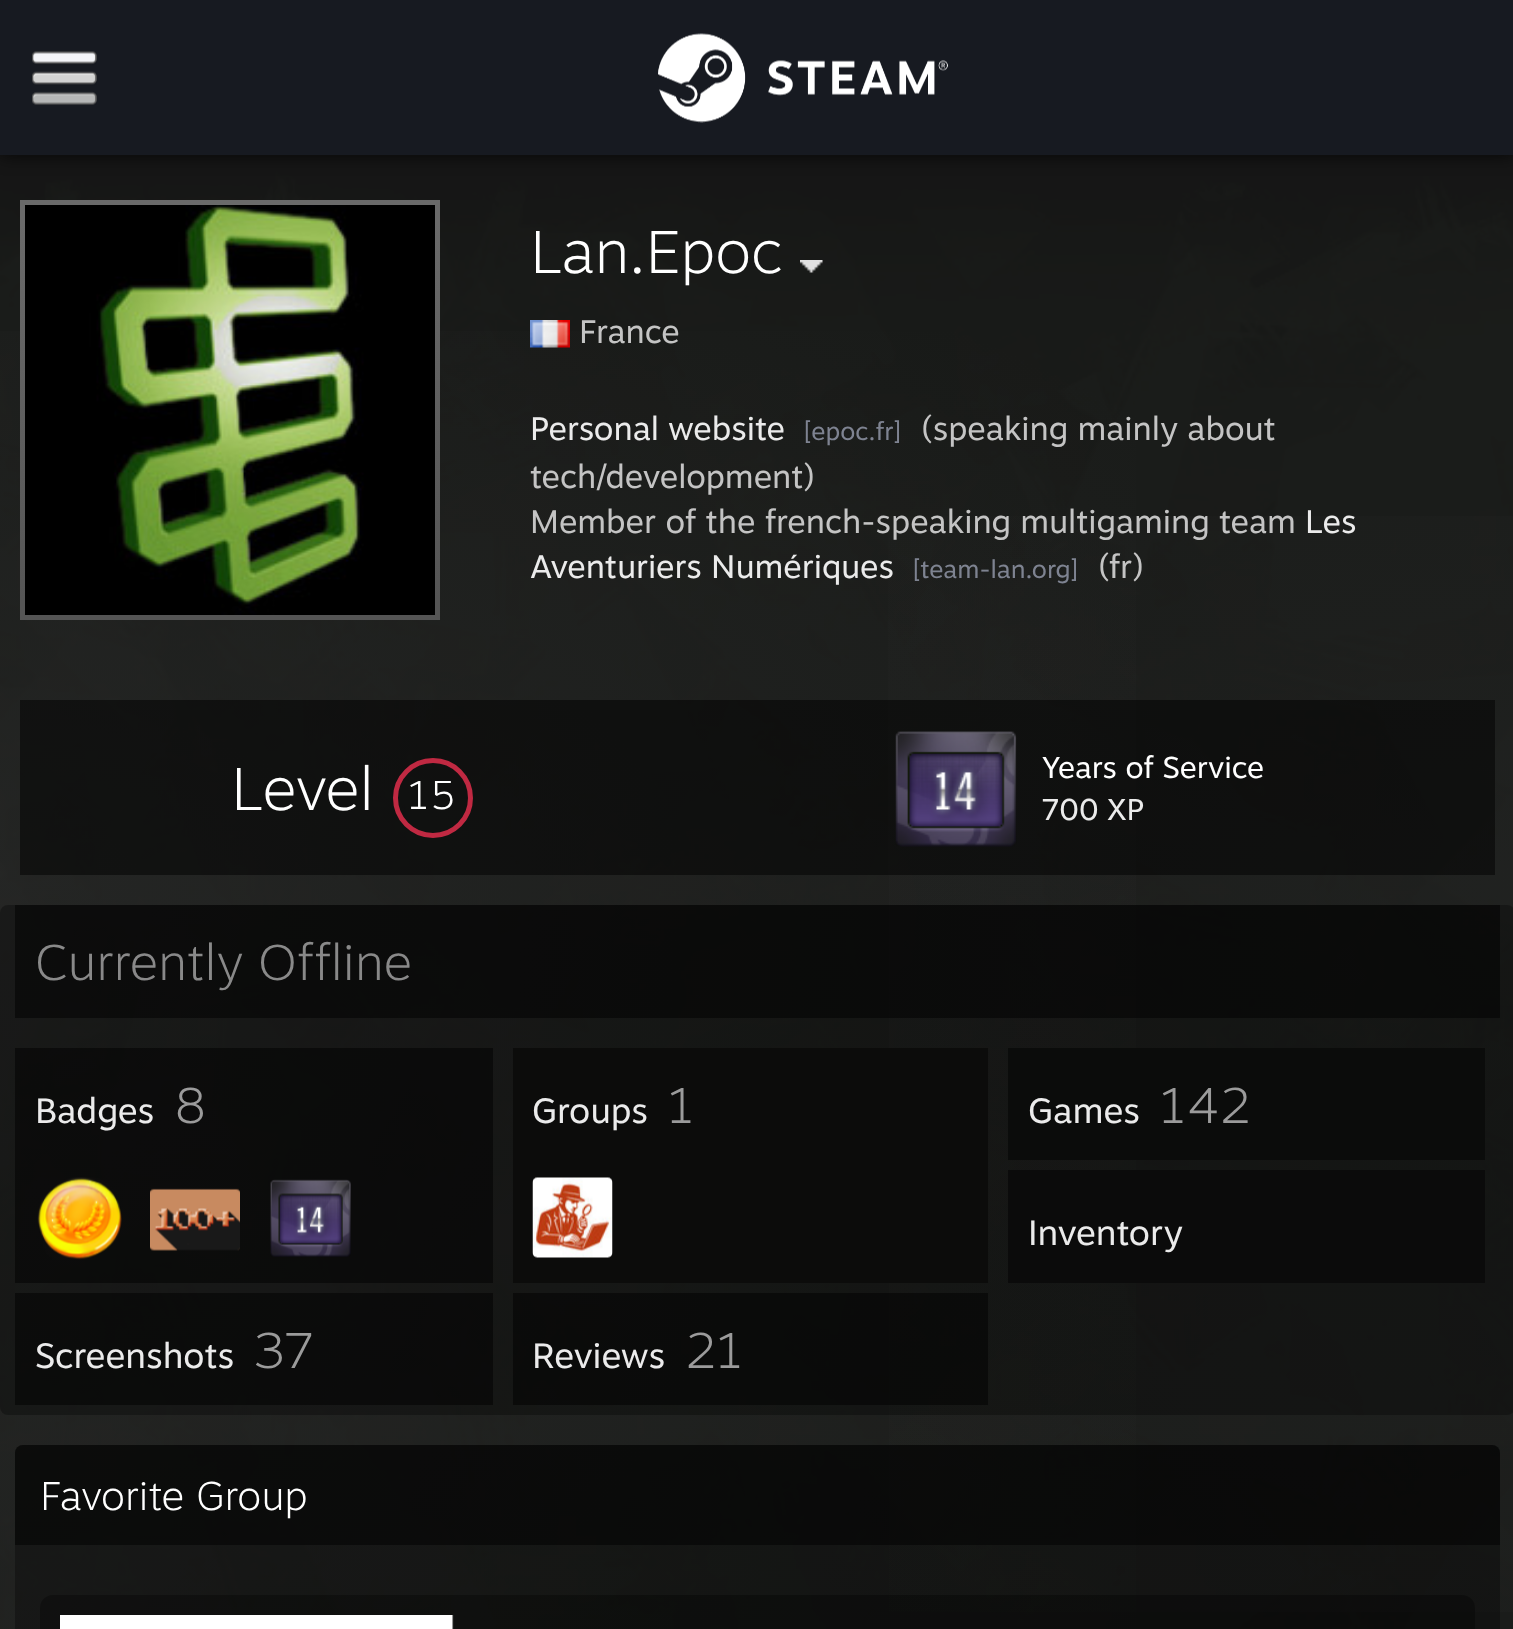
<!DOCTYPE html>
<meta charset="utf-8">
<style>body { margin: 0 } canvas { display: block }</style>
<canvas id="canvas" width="1513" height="1629"></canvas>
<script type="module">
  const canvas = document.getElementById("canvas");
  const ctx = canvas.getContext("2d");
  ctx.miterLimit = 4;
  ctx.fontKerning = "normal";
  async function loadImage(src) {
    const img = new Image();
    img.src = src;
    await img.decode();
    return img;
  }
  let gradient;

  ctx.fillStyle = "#ffffff";
  ctx.fillRect(0, 0, 1513, 1629);
  ctx.drawImage(await loadImage("img3.png"), 0, 155, 1513, 1474);
  ctx.fillStyle = "rgba(24, 24, 24, 0.93)";
  ctx.fillRect(0, 155, 1513, 720);
  ctx.fillStyle = "rgba(0, 0, 0, 0.75)";
  ctx.filter = "blur(9px)";
  ctx.beginPath();
  ctx.rect(0, 0, 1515, 155);
  ctx.fill();
  ctx.filter = "none";
  ctx.fillStyle = "#171a21";
  ctx.fillRect(0, 0, 1513, 155);
  ctx.drawImage(await loadImage("img1.png"), 32, 51, 65, 54);
  ctx.drawImage(await loadImage("img2.png"), 658, 33, 290, 90);
  gradient = ctx.createRadialGradient(0, 1841.97, 0, 0, 1841.97, 2143);
  gradient.addColorStop(0, "rgba(51, 51, 51, 0.37)");
  gradient.addColorStop(0.7, "rgba(51, 51, 51, 0)");
  ctx.fillStyle = gradient;
  ctx.beginPath();
  ctx.rect(0, 331, 1136, 544);
  ctx.save();
  ctx.clip();
  ctx.scale(1, 1018 / 2143);
  ctx.fillRect(0, 0, 1513, 3430);
  ctx.restore();
  gradient = ctx.createRadialGradient(1515, 1841.15, 0, 1515, 1841.15, 1515);
  gradient.addColorStop(0, "rgba(49, 49, 49, 0.23)");
  gradient.addColorStop(0.83, "rgba(49, 49, 49, 0)");
  ctx.fillStyle = gradient;
  ctx.beginPath();
  ctx.rect(888, 516, 625, 359);
  ctx.save();
  ctx.clip();
  ctx.scale(1, 720 / 1515);
  ctx.fillRect(0, 0, 1513, 3428);
  ctx.restore();
  gradient = ctx.createLinearGradient(230, 200, 230, 620);
  gradient.addColorStop(0.05, "#6a6a6a");
  gradient.addColorStop(0.95, "#555555");
  ctx.fillStyle = gradient;
  ctx.fillRect(20, 200, 420, 420);
  ctx.drawImage(await loadImage("img4.png"), 25, 205, 410, 410);
  ctx.font = "100 60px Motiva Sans";
  ctx.fillStyle = "#ffffff";
  ctx.fillText("Lan.Epoc", 530, 273);
  ctx.drawImage(await loadImage("img5.png"), 800, 260, 23, 13);
  ctx.drawImage(await loadImage("img6.png"), 530, 320, 40, 28);
  ctx.font = "32.5px Motiva Sans";
  ctx.fillStyle = "#c4c4c4";
  ctx.fillText("France", 579, 343);
  ctx.fillStyle = "#ebebeb";
  ctx.fillText("Personal website", 530, 440);
  ctx.font = "25px Motiva Sans";
  ctx.fillStyle = "#7e8391";
  ctx.fillText("[epoc.fr]", 804, 440);
  ctx.font = "32.5px Motiva Sans";
  ctx.fillStyle = "#c4c4c4";
  ctx.fillText("(speaking mainly about", 921, 440);
  ctx.fillText("tech/development)", 530, 488);
  ctx.fillText("Member of the french-speaking multigaming team", 530, 533);
  ctx.fillStyle = "#ebebeb";
  ctx.fillText("Les", 1305, 533);
  ctx.fillText("Aventuriers Numériques", 530, 578);
  ctx.font = "25px Motiva Sans";
  ctx.fillStyle = "#7e8391";
  ctx.fillText("[team-lan.org]", 913, 578);
  ctx.font = "32.5px Motiva Sans";
  ctx.fillStyle = "#c4c4c4";
  ctx.fillText("(fr)", 1098, 578);
  ctx.fillStyle = "rgba(0, 0, 0, 0.5)";
  ctx.fillRect(20, 700, 1475, 175);
  ctx.font = "100 60px Motiva Sans";
  ctx.fillStyle = "#ffffff";
  ctx.fillText("Level", 231, 810);
  ctx.beginPath();
  ctx.arc(433, 798, 37.5, 0, Math.PI * 2);
  ctx.strokeStyle = "#c02942";
  ctx.lineWidth = 5;
  ctx.stroke();
  ctx.font = "100 40px Motiva Sans";
  ctx.fillText("15", 408, 809);
  ctx.drawImage(await loadImage("img7.png"), 895, 731, 122, 116);
  ctx.font = "30px Motiva Sans";
  ctx.fillText("Years of Service", 1042, 778);
  ctx.fillStyle = "#ebebeb";
  ctx.fillText("700 XP", 1042, 820);
  ctx.fillStyle = "rgba(24, 24, 24, 0.93)";
  ctx.fillRect(0, 875, 1513, 754);
  gradient = ctx.createRadialGradient(0, 759.78, 0, 0, 759.78, 2143);
  gradient.addColorStop(0, "rgba(51, 51, 51, 0.37)");
  gradient.addColorStop(0.7, "rgba(51, 51, 51, 0)");
  ctx.fillStyle = gradient;
  ctx.beginPath();
  ctx.rect(0, 875, 1136, 754);
  ctx.save();
  ctx.clip();
  ctx.scale(1, 2468 / 2143);
  ctx.fillRect(0, 0, 1513, 1415);
  ctx.restore();
  gradient = ctx.createRadialGradient(1515, 759.67, 0, 1515, 759.67, 1515);
  gradient.addColorStop(0, "rgba(49, 49, 49, 0.23)");
  gradient.addColorStop(0.83, "rgba(49, 49, 49, 0)");
  ctx.fillStyle = gradient;
  ctx.beginPath();
  ctx.rect(889, 875, 624, 737);
  ctx.save();
  ctx.clip();
  ctx.scale(1, 1745 / 1515);
  ctx.fillRect(0, 0, 1513, 1415);
  ctx.restore();
  ctx.fillStyle = "rgba(0, 0, 0, 0.3)";
  ctx.beginPath();
  ctx.roundRect(0, 905, 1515, 510, 8);
  ctx.fill();
  ctx.fillStyle = "rgba(0, 0, 0, 0.5)";
  ctx.fillRect(15, 905, 1485, 113);
  ctx.font = "100 50px Motiva Sans";
  ctx.fillStyle = "#898989";
  ctx.fillText("Currently Offline", 35, 980);
  ctx.fillStyle = "#0b0c0b";
  ctx.fillRect(1008, 1048, 477, 112);
  ctx.font = "35px Motiva Sans";
  ctx.fillStyle = "#ebebeb";
  ctx.fillText("Games", 1028, 1123);
  ctx.font = "100 50px Motiva Sans";
  ctx.fillStyle = "#9b9b9b";
  ctx.fillText("142", 1160, 1123);
  ctx.fillStyle = "#0b0b0b";
  ctx.fillRect(1008, 1170, 477, 113);
  ctx.font = "35px Motiva Sans";
  ctx.fillStyle = "#ebebeb";
  ctx.fillText("Inventory", 1028, 1245);
  ctx.fillStyle = "rgba(0, 0, 0, 0.5)";
  ctx.fillRect(15, 1293, 478, 112);
  ctx.fillStyle = "#ebebeb";
  ctx.fillText("Screenshots", 35, 1368);
  ctx.font = "100 50px Motiva Sans";
  ctx.fillStyle = "#9b9b9b";
  ctx.fillText("37", 254, 1368);
  ctx.fillStyle = "rgba(0, 0, 0, 0.5)";
  ctx.fillRect(513, 1293, 475, 112);
  ctx.font = "35px Motiva Sans";
  ctx.fillStyle = "#ebebeb";
  ctx.fillText("Reviews", 532, 1368);
  ctx.font = "100 50px Motiva Sans";
  ctx.fillStyle = "#9b9b9b";
  ctx.fillText("21", 685, 1368);
  ctx.fillStyle = "rgba(0, 0, 0, 0.5)";
  ctx.fillRect(15, 1048, 478, 235);
  ctx.font = "35px Motiva Sans";
  ctx.fillStyle = "#ebebeb";
  ctx.fillText("Badges", 35, 1123);
  ctx.font = "100 50px Motiva Sans";
  ctx.fillStyle = "#9b9b9b";
  ctx.fillText("8", 175, 1123);
  ctx.drawImage(await loadImage("img8.png"), 37, 1177, 85, 83);
  ctx.drawImage(await loadImage("img9.png"), 150, 1188, 90, 63);
  ctx.drawImage(await loadImage("img10.png"), 270, 1179, 81, 78);
  ctx.fillStyle = "#0c0c0b";
  ctx.fillRect(513, 1048, 475, 235);
  ctx.font = "35px Motiva Sans";
  ctx.fillStyle = "#ebebeb";
  ctx.fillText("Groups", 532, 1123);
  ctx.font = "100 50px Motiva Sans";
  ctx.fillStyle = "#9b9b9b";
  ctx.fillText("1", 668, 1123);
  ctx.drawImage(await loadImage("img11.png"), 532, 1177, 81, 81);
  ctx.fillStyle = "rgba(0, 0, 0, 0.3)";
  ctx.beginPath();
  ctx.roundRect(15, 1445, 1485, 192, 8);
  ctx.fill();
  ctx.fillStyle = "rgba(0, 0, 0, 0.5)";
  ctx.beginPath();
  ctx.roundRect(15, 1445, 1485, 100, [8, 8, 0, 0]);
  ctx.fill();
  ctx.font = "100 40px Motiva Sans";
  ctx.fillStyle = "#ffffff";
  ctx.fillText("Favorite Group", 40, 1510);
  ctx.fillStyle = "rgba(0, 0, 0, 0.3)";
  ctx.beginPath();
  ctx.roundRect(40, 1595, 1435, 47, 13);
  ctx.fill();
  ctx.drawImage(await loadImage("img12.png"), 60, 1615, 394, 14);
</script>
